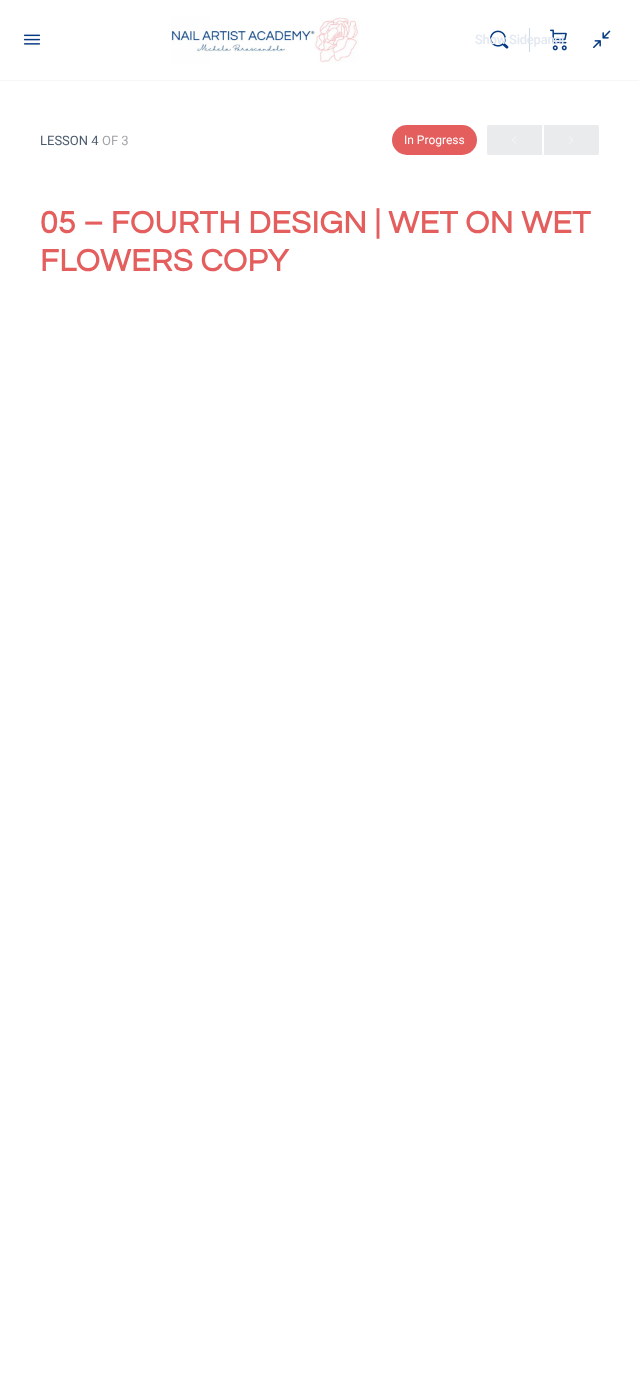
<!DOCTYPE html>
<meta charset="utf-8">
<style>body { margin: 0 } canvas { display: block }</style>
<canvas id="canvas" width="639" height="1397"></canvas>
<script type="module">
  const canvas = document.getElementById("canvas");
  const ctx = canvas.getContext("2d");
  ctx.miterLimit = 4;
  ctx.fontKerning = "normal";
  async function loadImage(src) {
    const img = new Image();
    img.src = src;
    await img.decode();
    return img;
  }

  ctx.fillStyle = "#ffffff";
  ctx.fillRect(0, 0, 639, 1397);
  ctx.fillStyle = "#f6f7f8";
  ctx.fillRect(0, 80, 639, 1);
  ctx.drawImage(await loadImage("img1.png"), 24, 34, 16, 11);
  ctx.drawImage(await loadImage("img2.png"), 171, 17, 188, 46);
  ctx.drawImage(await loadImage("img3.png"), 490, 30, 19, 19);
  ctx.fillStyle = "#cdd8e6";
  ctx.fillRect(529, 28, 1, 24);
  ctx.drawImage(await loadImage("img4.png"), 550, 29, 17, 22);
  ctx.letterSpacing = "-0.25px";
  ctx.font = "500 13px Roboto";
  ctx.fillStyle = "#e3e9f1";
  ctx.fillText("Show Sidepanel", 475, 44);
  ctx.drawImage(await loadImage("img5.png"), 593, 30, 18, 18);
  ctx.letterSpacing = "0px";
  ctx.font = "13px Roboto";
  ctx.fillStyle = "#4d5c6d";
  ctx.fillText("LESSON 4", 40, 145);
  ctx.fillStyle = "#a3a5a9";
  ctx.fillText("OF 3", 102, 145);
  ctx.fillStyle = "#e45e5e";
  ctx.beginPath();
  ctx.roundRect(392, 125, 85, 30, 15);
  ctx.fill();
  ctx.font = "12px Roboto";
  ctx.fillStyle = "#ffffff";
  ctx.fillText("In Progress", 404, 144);
  ctx.fillStyle = "#e9ebed";
  ctx.beginPath();
  ctx.roundRect(487, 125, 55, 30, [2, 0, 0, 2]);
  ctx.fill();
  ctx.drawImage(await loadImage("img6.png"), 512, 136, 4, 8);
  ctx.beginPath();
  ctx.roundRect(544, 125, 55, 30, [0, 2, 2, 0]);
  ctx.fill();
  ctx.drawImage(await loadImage("img7.png"), 569, 136, 4, 8);
  ctx.letterSpacing = "0.5px";
  ctx.font = "bold 32px Questrial";
  ctx.fillStyle = "#e45e5e";
  ctx.fillText("05 – FOURTH DESIGN | WET ON WET", 40, 233);
  ctx.fillText("FLOWERS COPY", 40, 271);
</script>
